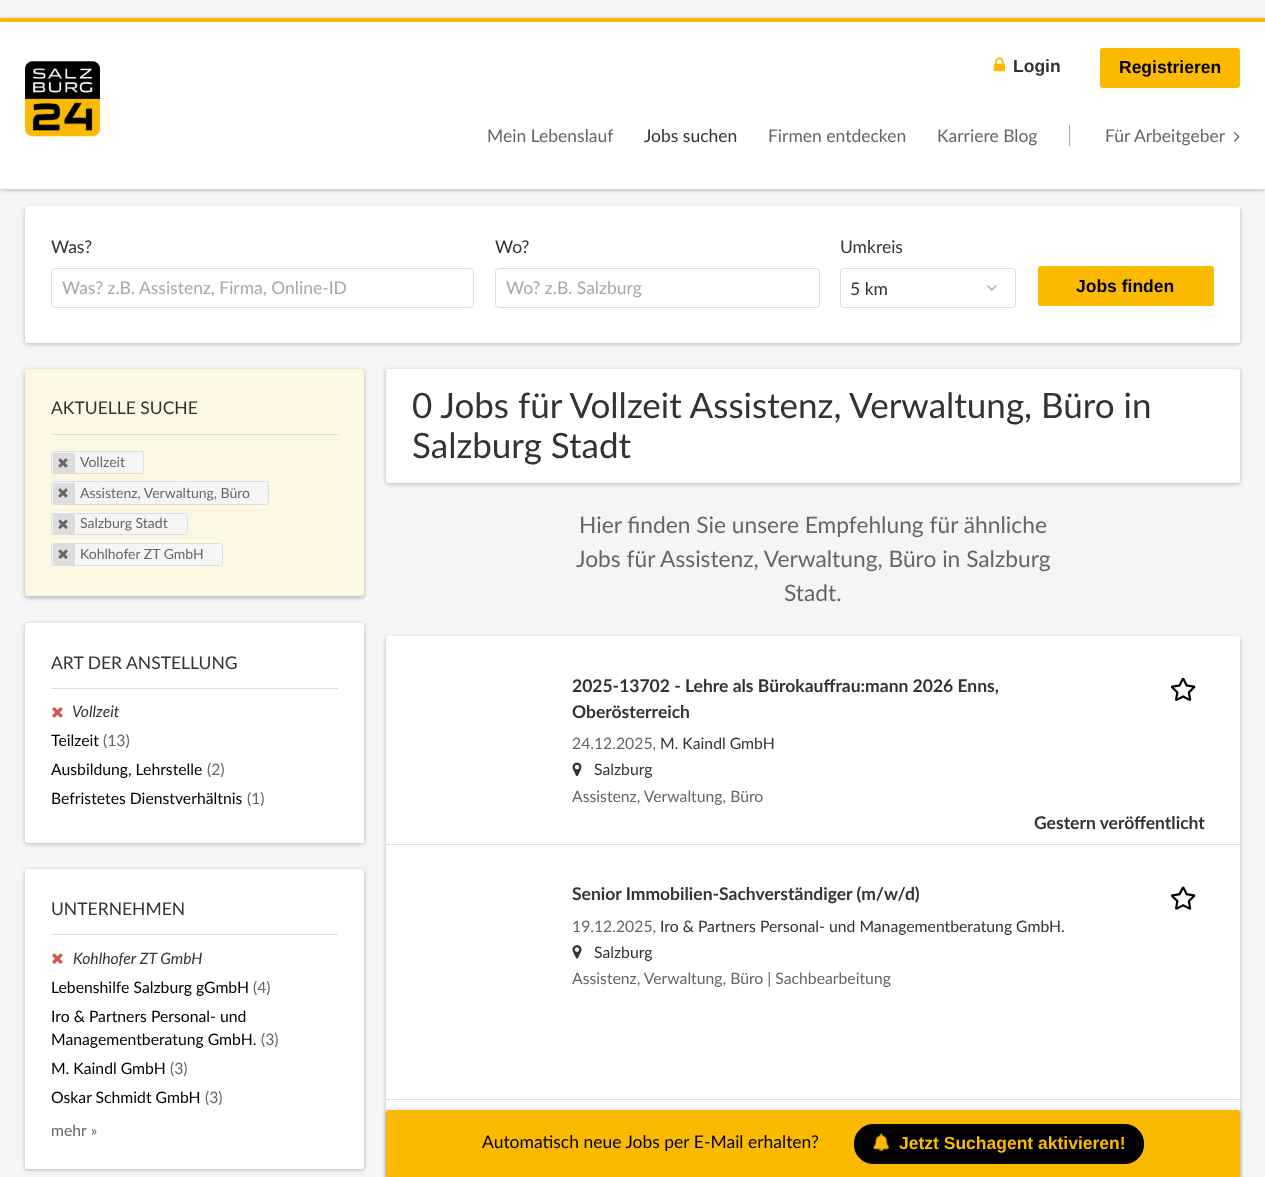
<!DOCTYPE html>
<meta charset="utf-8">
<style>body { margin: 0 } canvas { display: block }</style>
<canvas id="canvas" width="1265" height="1177"></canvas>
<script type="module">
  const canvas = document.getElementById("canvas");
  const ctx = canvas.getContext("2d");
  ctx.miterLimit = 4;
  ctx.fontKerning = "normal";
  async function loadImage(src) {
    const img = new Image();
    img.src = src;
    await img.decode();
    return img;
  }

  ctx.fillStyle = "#f5f5f5";
  ctx.fillRect(0, 0, 1265, 1177);
  ctx.fillStyle = "rgba(0, 0, 0, 0.25)";
  ctx.filter = "blur(2px)";
  ctx.beginPath();
  ctx.rect(0, 19, 1265, 171);
  ctx.fill();
  ctx.filter = "none";
  ctx.fillStyle = "#ffffff";
  ctx.fillRect(0, 22, 1265, 167);
  ctx.fillStyle = "#fbba00";
  ctx.fillRect(0, 18, 1265, 4);
  ctx.drawImage(await loadImage("img1.png"), 25, 61, 75, 76);
  ctx.drawImage(await loadImage("img2.png"), 993, 57, 12, 15);
  ctx.font = "bold 17.5px Liberation Sans";
  ctx.fillStyle = "#333333";
  ctx.fillText("Login", 1013, 72);
  ctx.fillStyle = "#fbba00";
  ctx.beginPath();
  ctx.roundRect(1100.5, 48.5, 139, 39, 2);
  ctx.fill();
  ctx.strokeStyle = "#fbba00";
  ctx.stroke();
  ctx.fillStyle = "#000000";
  ctx.fillText("Registrieren", 1119, 73);
  ctx.font = "17.5px Lato";
  ctx.fillStyle = "#666666";
  ctx.fillText("Mein Lebenslauf", 487, 142);
  ctx.fillStyle = "#333333";
  ctx.fillText("Jobs suchen", 644, 142);
  ctx.fillStyle = "#666666";
  ctx.fillText("Firmen entdecken", 768, 142);
  ctx.fillText("Karriere Blog", 937, 142);
  ctx.fillStyle = "#a8a8a8";
  ctx.fillRect(1069, 125, 1, 21);
  ctx.fillStyle = "#666666";
  ctx.fillText("Für Arbeitgeber", 1105, 142);
  ctx.drawImage(await loadImage("img3.png"), 1233, 132, 7, 10);
  ctx.fillStyle = "rgba(0, 0, 0, 0.25)";
  ctx.filter = "blur(2px)";
  ctx.beginPath();
  ctx.roundRect(25, 208, 1215, 136, 2.5);
  ctx.fill();
  ctx.filter = "none";
  ctx.fillStyle = "#ffffff";
  ctx.beginPath();
  ctx.roundRect(25, 206, 1215, 137, 2.5);
  ctx.fill();
  ctx.fillStyle = "#333333";
  ctx.fillText("Was?", 51, 253);
  ctx.beginPath();
  ctx.roundRect(51.5, 268.5, 422, 39, 3.5);
  ctx.strokeStyle = "#dddddd";
  ctx.stroke();
  ctx.fillStyle = "#a8a8a8";
  ctx.fillText("Was? z.B. Assistenz, Firma, Online-ID", 62, 294);
  ctx.fillStyle = "#333333";
  ctx.fillText("Wo?", 495, 253);
  ctx.beginPath();
  ctx.roundRect(495.5, 268.5, 324, 39, 3.5);
  ctx.stroke();
  ctx.fillStyle = "#a8a8a8";
  ctx.fillText("Wo? z.B. Salzburg", 506, 294);
  ctx.fillStyle = "#333333";
  ctx.fillText("Umkreis", 840, 253);
  ctx.beginPath();
  ctx.roundRect(840.5, 268.5, 175, 39, 3.5);
  ctx.stroke();
  ctx.fillText("5 km", 850, 295);
  ctx.drawImage(await loadImage("img4.png"), 987, 285, 10, 6);
  ctx.fillStyle = "#fbba00";
  ctx.beginPath();
  ctx.roundRect(1038.5, 266.5, 175, 39, 2);
  ctx.fill();
  ctx.strokeStyle = "#fbba00";
  ctx.stroke();
  ctx.font = "bold 17.5px Liberation Sans";
  ctx.fillStyle = "#000000";
  ctx.fillText("Jobs finden", 1076, 292);
  ctx.fillStyle = "rgba(0, 0, 0, 0.25)";
  ctx.filter = "blur(2px)";
  ctx.beginPath();
  ctx.roundRect(25, 370, 339, 228, 2.5);
  ctx.fill();
  ctx.filter = "none";
  ctx.fillStyle = "#fcf8e3";
  ctx.beginPath();
  ctx.roundRect(25, 369, 339, 227, 2.5);
  ctx.fill();
  ctx.fillStyle = "#dddddd";
  ctx.fillRect(51, 434, 287, 1);
  ctx.font = "17.5px Lato";
  ctx.fillStyle = "#333333";
  ctx.fillText("AKTUELLE SUCHE", 51, 414);
  ctx.fillStyle = "#f5f5f5";
  ctx.beginPath();
  ctx.roundRect(51.5, 451.5, 92, 22, 2);
  ctx.fill();
  ctx.strokeStyle = "#dddddd";
  ctx.stroke();
  ctx.fillStyle = "#dddddd";
  ctx.fillRect(53, 453, 22, 20);
  ctx.drawImage(await loadImage("img5.png"), 58, 458, 10, 10);
  ctx.font = "14px Lato";
  ctx.fillStyle = "#666666";
  ctx.fillText("Vollzeit", 80, 467);
  ctx.fillStyle = "#f5f5f5";
  ctx.beginPath();
  ctx.roundRect(51.5, 481.5, 217, 23, 2);
  ctx.fill();
  ctx.stroke();
  ctx.fillStyle = "#dddddd";
  ctx.fillRect(53, 483, 22, 21);
  ctx.drawImage(await loadImage("img5.png"), 58, 488, 10, 10);
  ctx.fillStyle = "#666666";
  ctx.fillText("Assistenz, Verwaltung, Büro", 80, 498);
  ctx.fillStyle = "#f5f5f5";
  ctx.beginPath();
  ctx.roundRect(51.5, 513.5, 136, 21, 2);
  ctx.fill();
  ctx.stroke();
  ctx.fillStyle = "#dddddd";
  ctx.fillRect(53, 514, 22, 20);
  ctx.drawImage(await loadImage("img6.png"), 58, 519, 10, 10);
  ctx.fillStyle = "#666666";
  ctx.fillText("Salzburg Stadt", 80, 528);
  ctx.fillStyle = "#f5f5f5";
  ctx.beginPath();
  ctx.roundRect(51.5, 543.5, 171, 22, 2);
  ctx.fill();
  ctx.stroke();
  ctx.fillStyle = "#dddddd";
  ctx.fillRect(53, 544, 22, 21);
  ctx.drawImage(await loadImage("img6.png"), 58, 549, 10, 10);
  ctx.fillStyle = "#666666";
  ctx.fillText("Kohlhofer ZT GmbH", 80, 559);
  ctx.fillStyle = "rgba(0, 0, 0, 0.25)";
  ctx.filter = "blur(2px)";
  ctx.beginPath();
  ctx.roundRect(25, 624, 339, 220, 2.5);
  ctx.fill();
  ctx.filter = "none";
  ctx.fillStyle = "#ffffff";
  ctx.beginPath();
  ctx.roundRect(25, 623, 339, 220, 2.5);
  ctx.fill();
  ctx.fillStyle = "#dddddd";
  ctx.fillRect(51, 688, 287, 1);
  ctx.font = "17.5px Lato";
  ctx.fillStyle = "#333333";
  ctx.fillText("ART DER ANSTELLUNG", 51, 669);
  ctx.drawImage(await loadImage("img7.png"), 52, 707, 11, 11);
  ctx.font = "italic 15.75px Lato";
  ctx.fillText("Vollzeit", 72, 717);
  ctx.font = "15.75px Lato";
  ctx.fillStyle = "#000000";
  ctx.fillText("Teilzeit", 51, 746);
  ctx.fillStyle = "#666666";
  ctx.fillText("(13)", 103, 746);
  ctx.fillStyle = "#000000";
  ctx.fillText("Ausbildung, Lehrstelle", 51, 775);
  ctx.fillStyle = "#666666";
  ctx.fillText("(2)", 207, 775);
  ctx.fillStyle = "#000000";
  ctx.fillText("Befristetes Dienstverhältnis", 51, 804);
  ctx.fillStyle = "#666666";
  ctx.fillText("(1)", 247, 804);
  ctx.fillStyle = "rgba(0, 0, 0, 0.25)";
  ctx.filter = "blur(2px)";
  ctx.beginPath();
  ctx.roundRect(25, 870, 339, 300, 2.5);
  ctx.fill();
  ctx.filter = "none";
  ctx.fillStyle = "#ffffff";
  ctx.beginPath();
  ctx.roundRect(25, 869, 339, 300, 2.5);
  ctx.fill();
  ctx.fillStyle = "#dddddd";
  ctx.fillRect(51, 934, 287, 1);
  ctx.font = "17.5px Lato";
  ctx.fillStyle = "#333333";
  ctx.fillText("UNTERNEHMEN", 51, 915);
  ctx.drawImage(await loadImage("img8.png"), 52, 953, 11, 11);
  ctx.font = "italic 15.75px Lato";
  ctx.fillText("Kohlhofer ZT GmbH", 73, 964);
  ctx.font = "15.75px Lato";
  ctx.fillStyle = "#000000";
  ctx.fillText("Lebenshilfe Salzburg gGmbH", 51, 993);
  ctx.fillStyle = "#666666";
  ctx.fillText("(4)", 253, 993);
  ctx.fillStyle = "#000000";
  ctx.fillText("Iro & Partners Personal- und", 51, 1022);
  ctx.fillText("Managementberatung GmbH.", 51, 1045);
  ctx.fillStyle = "#666666";
  ctx.fillText("(3)", 261, 1045);
  ctx.fillStyle = "#000000";
  ctx.fillText("M. Kaindl GmbH", 51, 1074);
  ctx.fillStyle = "#666666";
  ctx.fillText("(3)", 170, 1074);
  ctx.fillStyle = "#000000";
  ctx.fillText("Oskar Schmidt GmbH", 51, 1103);
  ctx.fillStyle = "#666666";
  ctx.fillText("(3)", 205, 1103);
  ctx.fillText("mehr »", 51, 1136);
  ctx.fillStyle = "rgba(0, 0, 0, 0.25)";
  ctx.filter = "blur(2px)";
  ctx.beginPath();
  ctx.roundRect(386, 370, 854, 114, 2.5);
  ctx.fill();
  ctx.filter = "none";
  ctx.fillStyle = "#ffffff";
  ctx.beginPath();
  ctx.roundRect(386, 369, 854, 114, 2.5);
  ctx.fill();
  ctx.font = "35px Lato";
  ctx.fillStyle = "#333333";
  ctx.fillText("0 Jobs für Vollzeit Assistenz, Verwaltung, Büro in", 412, 418);
  ctx.fillText("Salzburg Stadt", 412, 458);
  ctx.font = "22.75px Lato";
  ctx.fillStyle = "#666666";
  ctx.fillText("Hier finden Sie unsere Empfehlung für ähnliche", 579, 533);
  ctx.fillText("Jobs für Assistenz, Verwaltung, Büro in Salzburg", 576, 567);
  ctx.fillText("Stadt.", 784, 601);
  ctx.fillStyle = "rgba(0, 0, 0, 0.25)";
  ctx.filter = "blur(2px)";
  ctx.beginPath();
  ctx.roundRect(386, 638, 854, 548, 2.5);
  ctx.fill();
  ctx.filter = "none";
  ctx.fillStyle = "#ffffff";
  ctx.beginPath();
  ctx.roundRect(386, 636, 854, 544, 2.5);
  ctx.fill();
  ctx.font = "bold 17.5px Lato";
  ctx.fillStyle = "#333333";
  ctx.fillText("2025-13702 - Lehre als Bürokauffrau:mann 2026 Enns,", 572, 692);
  ctx.fillText("Oberösterreich", 572, 718);
  ctx.font = "15.75px Lato";
  ctx.fillStyle = "#666666";
  ctx.fillText("24.12.2025,", 572, 749);
  ctx.fillStyle = "#333333";
  ctx.fillText("M. Kaindl GmbH", 660, 749);
  ctx.drawImage(await loadImage("img9.png"), 572, 762, 10, 15);
  ctx.fillText("Salzburg", 594, 775);
  ctx.fillStyle = "#666666";
  ctx.fillText("Assistenz, Verwaltung, Büro", 572, 802);
  ctx.drawImage(await loadImage("img10.png"), 1171, 677, 25, 24);
  ctx.font = "bold 17.5px Lato";
  ctx.fillStyle = "#333333";
  ctx.fillText("Gestern veröffentlicht", 1034, 829);
  ctx.fillStyle = "#dddddd";
  ctx.fillRect(386, 844, 854, 1);
  ctx.fillStyle = "#333333";
  ctx.fillText("Senior Immobilien-Sachverständiger (m/w/d)", 572, 900);
  ctx.font = "15.75px Lato";
  ctx.fillStyle = "#666666";
  ctx.fillText("19.12.2025,", 572, 932);
  ctx.fillStyle = "#333333";
  ctx.fillText("Iro & Partners Personal- und Managementberatung GmbH.", 660, 932);
  ctx.drawImage(await loadImage("img11.png"), 572, 945, 10, 14);
  ctx.fillText("Salzburg", 594, 958);
  ctx.fillStyle = "#666666";
  ctx.fillText("Assistenz, Verwaltung, Büro | Sachbearbeitung", 572, 984);
  ctx.drawImage(await loadImage("img12.png"), 1170, 886, 26, 24);
  ctx.fillStyle = "#dddddd";
  ctx.fillRect(386, 1099, 854, 1);
  ctx.fillStyle = "rgba(0, 0, 0, 0.25)";
  ctx.filter = "blur(2px)";
  ctx.beginPath();
  ctx.roundRect(386, 1111, 854, 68, 2.5);
  ctx.fill();
  ctx.filter = "none";
  ctx.fillStyle = "#fbba00";
  ctx.beginPath();
  ctx.roundRect(386, 1110, 854, 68, 2.5);
  ctx.fill();
  ctx.font = "17.5px Lato";
  ctx.fillStyle = "#000000";
  ctx.fillText("Automatisch neue Jobs per E-Mail erhalten?", 482, 1148);
  ctx.beginPath();
  ctx.roundRect(854.5, 1124.5, 289, 39, 18.5);
  ctx.fill();
  ctx.strokeStyle = "#000000";
  ctx.stroke();
  ctx.drawImage(await loadImage("img13.png"), 873, 1133, 17, 19);
  ctx.font = "bold 17.5px Liberation Sans";
  ctx.fillStyle = "#fbba00";
  ctx.fillText("Jetzt Suchagent aktivieren!", 899, 1149);
</script>
